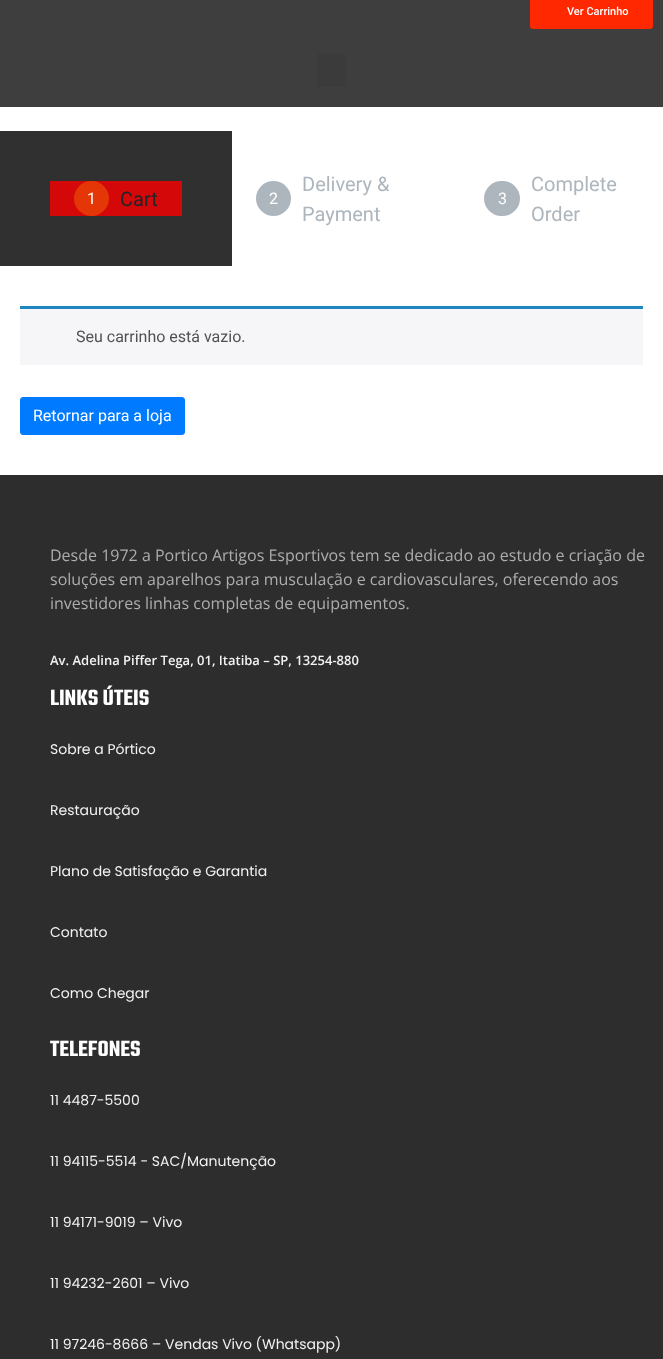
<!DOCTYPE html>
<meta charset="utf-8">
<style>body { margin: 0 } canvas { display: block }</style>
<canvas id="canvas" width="663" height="1359"></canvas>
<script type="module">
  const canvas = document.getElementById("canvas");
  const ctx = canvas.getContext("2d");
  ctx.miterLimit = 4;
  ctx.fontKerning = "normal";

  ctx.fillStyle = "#ffffff";
  ctx.fillRect(0, 0, 663, 1359);
  ctx.fillStyle = "#3e3e3e";
  ctx.fillRect(0, 0, 663, 107);
  ctx.fillStyle = "#ff2800";
  ctx.beginPath();
  ctx.roundRect(530, -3, 123, 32, 3);
  ctx.fill();
  ctx.font = "500 11px Roboto";
  ctx.fillStyle = "#ffffff";
  ctx.fillText("Ver Carrinho", 567, 15);
  ctx.fillStyle = "#3b3b3b";
  ctx.beginPath();
  ctx.roundRect(317, 54, 29, 33, 3);
  ctx.fill();
  ctx.fillStyle = "#d40808";
  ctx.beginPath();
  ctx.rect(25, 156, 182, 85);
  ctx.fill();
  ctx.strokeStyle = "#303030";
  ctx.lineWidth = 50;
  ctx.stroke();
  ctx.fillStyle = "#e53607";
  ctx.beginPath();
  ctx.arc(91.5, 198.5, 17.5, 0, Math.PI * 2);
  ctx.fill();
  ctx.font = "16px Roboto";
  ctx.fillStyle = "#ffffff";
  ctx.fillText("1", 87, 204);
  ctx.font = "20px Roboto";
  ctx.fillStyle = "#212529";
  ctx.fillText("Cart", 120, 206);
  ctx.fillStyle = "#adb5bd";
  ctx.beginPath();
  ctx.arc(273.5, 198.5, 17.5, 0, Math.PI * 2);
  ctx.fill();
  ctx.font = "16px Roboto";
  ctx.fillStyle = "#ffffff";
  ctx.fillText("2", 269, 204);
  ctx.font = "20px Roboto";
  ctx.fillStyle = "#adb5bd";
  ctx.fillText("Delivery &", 302, 191);
  ctx.fillText("Payment", 302, 221);
  ctx.beginPath();
  ctx.roundRect(484, 181, 36, 35, 17.5);
  ctx.fill();
  ctx.font = "16px Roboto";
  ctx.fillStyle = "#ffffff";
  ctx.fillText("3", 498, 204);
  ctx.font = "20px Roboto";
  ctx.fillStyle = "#adb5bd";
  ctx.fillText("Complete", 531, 191);
  ctx.fillText("Order", 531, 221);
  ctx.fillStyle = "#f6f5f8";
  ctx.fillRect(20, 309, 623, 56);
  ctx.fillStyle = "#1e85be";
  ctx.fillRect(20, 306, 623, 3);
  ctx.font = "16px Roboto";
  ctx.fillStyle = "#515151";
  ctx.fillText("Seu carrinho está vazio.", 76, 342);
  ctx.fillStyle = "#007bff";
  ctx.beginPath();
  ctx.roundRect(20.5, 397.5, 164, 37, 2.5);
  ctx.fill();
  ctx.strokeStyle = "#007bff";
  ctx.lineWidth = 1;
  ctx.stroke();
  ctx.fillStyle = "#ffffff";
  ctx.fillText("Retornar para a loja", 33, 421);
  ctx.fillStyle = "#2d2d2d";
  ctx.fillRect(0, 475, 663, 884);
  ctx.font = "16px Open Sans";
  ctx.fillStyle = "#adadad";
  ctx.fillText("Desde 1972 a Portico Artigos Esportivos tem se dedicado ao estudo e criação de", 50, 561);
  ctx.fillText("soluções em aparelhos para musculação e cardiovasculares, oferecendo aos", 50, 585);
  ctx.fillText("investidores linhas completas de equipamentos.", 50, 609);
  ctx.font = "600 13px Open Sans";
  ctx.fillStyle = "#f2f2f2";
  ctx.fillText("Av. Adelina Piffer Tega, 01, Itatiba – SP, 13254-880", 50, 665);
  ctx.font = "600 24px Teko";
  ctx.fillStyle = "#ffffff";
  ctx.fillText("LINKS ÚTEIS", 50, 705);
  ctx.font = "14px Poppins";
  ctx.fillStyle = "#f2f2f2";
  ctx.fillText("Sobre a Pórtico", 50, 754);
  ctx.fillText("Restauração", 50, 815);
  ctx.fillText("Plano de Satisfação e Garantia", 50, 876);
  ctx.fillText("Contato", 50, 937);
  ctx.fillText("Como Chegar", 50, 998);
  ctx.font = "600 24px Teko";
  ctx.fillStyle = "#ffffff";
  ctx.fillText("TELEFONES", 50, 1056);
  ctx.font = "14px Poppins";
  ctx.fillStyle = "#f2f2f2";
  ctx.fillText("11 4487-5500", 50, 1105);
  ctx.fillText("11 94115-5514 - SAC/Manutenção", 50, 1166);
  ctx.fillText("11 94171-9019 – Vivo", 50, 1227);
  ctx.fillText("11 94232-2601 – Vivo", 50, 1288);
  ctx.fillText("11 97246-8666 – Vendas Vivo (Whatsapp)", 50, 1349);
</script>
